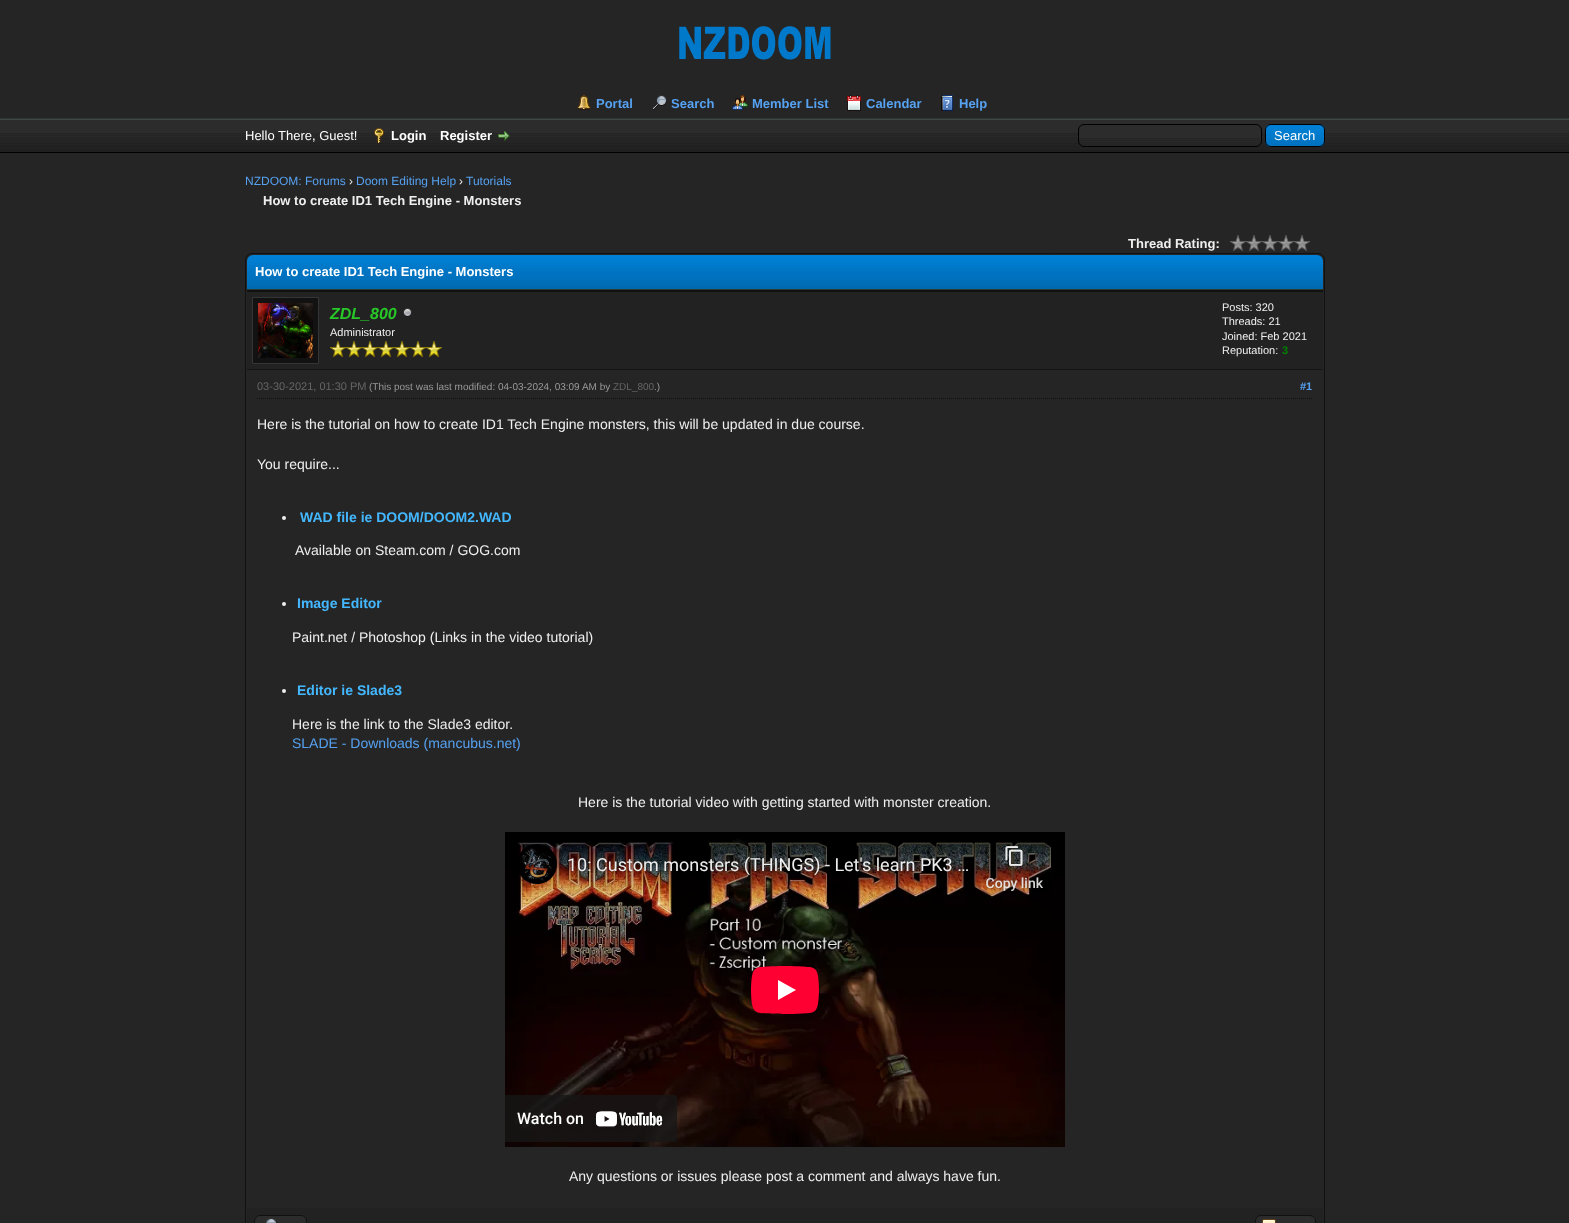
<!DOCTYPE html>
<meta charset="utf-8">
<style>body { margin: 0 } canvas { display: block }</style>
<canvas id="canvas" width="1569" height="1223"></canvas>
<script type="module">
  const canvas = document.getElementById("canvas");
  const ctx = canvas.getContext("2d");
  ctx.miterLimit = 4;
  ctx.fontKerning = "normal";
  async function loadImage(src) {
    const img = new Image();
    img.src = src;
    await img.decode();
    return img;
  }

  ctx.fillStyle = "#252525";
  ctx.fillRect(0, 0, 1569, 1223);
  ctx.fillStyle = "#263c30";
  ctx.fillRect(0, 118, 1569, 1);
  ctx.drawImage(await loadImage("img1.png"), 679, 26, 152, 34);
  ctx.drawImage(await loadImage("img2.png"), 577, 95, 14, 15);
  ctx.font = "bold 13px Liberation Sans";
  ctx.fillStyle = "#56a1f0";
  ctx.fillText("Portal", 596, 108);
  ctx.drawImage(await loadImage("img3.png"), 653, 95, 14, 15);
  ctx.fillText("Search", 671, 108);
  ctx.drawImage(await loadImage("img4.png"), 732, 95, 16, 15);
  ctx.fillText("Member List", 752, 108);
  ctx.drawImage(await loadImage("img5.png"), 847, 95, 14, 16);
  ctx.fillText("Calendar", 866, 108);
  ctx.drawImage(await loadImage("img6.png"), 941, 95, 12, 16);
  ctx.fillText("Help", 959, 108);
  ctx.drawImage(await loadImage("img7.png"), 0, 120, 1569, 32);
  ctx.fillStyle = "#444444";
  ctx.fillRect(0, 119, 1569, 1);
  ctx.fillStyle = "#000000";
  ctx.fillRect(0, 152, 1569, 1);
  ctx.font = "13px Liberation Sans";
  ctx.fillStyle = "#ffffff";
  ctx.fillText("Hello There, Guest!", 245, 140);
  ctx.drawImage(await loadImage("img8.png"), 374, 128, 10, 15);
  ctx.font = "bold 13px Liberation Sans";
  ctx.fillText("Login", 391, 140);
  ctx.fillText("Register", 440, 140);
  ctx.drawImage(await loadImage("img9.png"), 498, 131, 12, 10);
  ctx.drawImage(await loadImage("img10.png"), 1078, 125, 184, 22);
  ctx.beginPath();
  ctx.roundRect(1078.5, 124.5, 183, 22, 5.5);
  ctx.strokeStyle = "#000000";
  ctx.stroke();
  ctx.drawImage(await loadImage("img11.png"), 1265, 125, 60, 22);
  ctx.beginPath();
  ctx.roundRect(1265.5, 124.5, 59, 22, 5.5);
  ctx.stroke();
  ctx.font = "13px Liberation Sans";
  ctx.fillText("Search", 1274, 140);
  ctx.font = "12px Liberation Sans";
  ctx.fillStyle = "#56a1f0";
  ctx.fillText("NZDOOM: Forums", 245, 185);
  ctx.fillStyle = "#efefef";
  ctx.fillText("›", 349, 185);
  ctx.fillStyle = "#56a1f0";
  ctx.fillText("Doom Editing Help", 356, 185);
  ctx.fillStyle = "#efefef";
  ctx.fillText("›", 459, 185);
  ctx.fillStyle = "#56a1f0";
  ctx.fillText("Tutorials", 466, 185);
  ctx.font = "bold 13px Liberation Sans";
  ctx.fillStyle = "#efefef";
  ctx.fillText("How to create ID1 Tech Engine - Monsters", 263, 205);
  ctx.fillText("Thread Rating:", 1128, 248);
  ctx.drawImage(await loadImage("img12.png"), 1230, 235, 80, 16);
  ctx.beginPath();
  ctx.roundRect(245.5, 253.5, 1079, 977, 6.5);
  ctx.strokeStyle = "#111111";
  ctx.stroke();
  ctx.drawImage(await loadImage("img13.png"), 247, 255, 1076, 34);
  ctx.fillStyle = "#263c30";
  ctx.fillRect(247, 289, 1076, 1);
  ctx.fillStyle = "#ffffff";
  ctx.fillText("How to create ID1 Tech Engine - Monsters", 255, 276);
  ctx.fillStyle = "#222222";
  ctx.fillRect(247, 292, 1076, 77);
  ctx.fillStyle = "#111111";
  ctx.fillRect(247, 290, 1076, 2);
  ctx.fillStyle = "#151515";
  ctx.fillRect(247, 369, 1076, 1);
  ctx.fillStyle = "#121212";
  ctx.beginPath();
  ctx.rect(252.5, 297.5, 66, 66);
  ctx.fill();
  ctx.strokeStyle = "#353535";
  ctx.stroke();
  ctx.drawImage(await loadImage("img14.png"), 258, 303, 55, 55);
  ctx.font = "italic bold 16px Liberation Sans";
  ctx.fillStyle = "#27c827";
  ctx.fillText("ZDL_800", 330, 319);
  ctx.drawImage(await loadImage("img15.png"), 403, 308, 9, 9);
  ctx.font = "11px Liberation Sans";
  ctx.fillStyle = "#efefef";
  ctx.fillText("Administrator", 330, 336);
  ctx.drawImage(await loadImage("img16.png"), 330, 341, 16, 16);
  ctx.drawImage(await loadImage("img16.png"), 346, 341, 16, 16);
  ctx.drawImage(await loadImage("img16.png"), 362, 341, 16, 16);
  ctx.drawImage(await loadImage("img16.png"), 378, 341, 16, 16);
  ctx.drawImage(await loadImage("img16.png"), 394, 341, 16, 16);
  ctx.drawImage(await loadImage("img16.png"), 410, 341, 16, 16);
  ctx.drawImage(await loadImage("img16.png"), 426, 341, 16, 16);
  ctx.fillText("Posts: 320", 1222, 311);
  ctx.fillText("Threads: 21", 1222, 325);
  ctx.fillText("Joined: Feb 2021", 1222, 340);
  ctx.fillText("Reputation:", 1222, 354);
  ctx.font = "bold 11px Liberation Sans";
  ctx.fillStyle = "#008000";
  ctx.fillText("3", 1282, 354);
  ctx.beginPath();
  ctx.moveTo(257, 398.5);
  ctx.lineTo(1313, 398.5);
  ctx.strokeStyle = "#0f0f0f";
  ctx.setLineDash([1, 1]);
  ctx.stroke();
  ctx.font = "11px Liberation Sans";
  ctx.fillStyle = "#666666";
  ctx.fillText("03-30-2021, 01:30 PM", 257, 390);
  ctx.font = "10px Liberation Sans";
  ctx.fillStyle = "#999999";
  ctx.fillText("(This post was last modified: 04-03-2024, 03:09 AM by", 369, 390);
  ctx.fillStyle = "#666666";
  ctx.fillText("ZDL_800", 613, 390);
  ctx.fillStyle = "#999999";
  ctx.fillText(".)", 654, 390);
  ctx.font = "bold 11px Liberation Sans";
  ctx.fillStyle = "#56a1f0";
  ctx.fillText("#1", 1300, 390);
  ctx.font = "14px Liberation Sans";
  ctx.fillStyle = "#efefef";
  ctx.fillText("Here is the tutorial on how to create ID1 Tech Engine monsters, this will be updated in due course.", 257, 429);
  ctx.fillText("You require...", 257, 469);
  ctx.beginPath();
  ctx.arc(284, 518, 2, 0, Math.PI * 2);
  ctx.fill();
  ctx.font = "bold 14px Liberation Sans";
  ctx.fillStyle = "#44b8ff";
  ctx.fillText("WAD file ie DOOM/DOOM2.WAD", 300, 522);
  ctx.font = "14px Liberation Sans";
  ctx.fillStyle = "#efefef";
  ctx.fillText("Available on Steam.com / GOG.com", 295, 555);
  ctx.beginPath();
  ctx.arc(284, 604, 2, 0, Math.PI * 2);
  ctx.fill();
  ctx.font = "bold 14px Liberation Sans";
  ctx.fillStyle = "#44b8ff";
  ctx.fillText("Image Editor", 297, 608);
  ctx.font = "14px Liberation Sans";
  ctx.fillStyle = "#efefef";
  ctx.fillText("Paint.net / Photoshop (Links in the video tutorial)", 292, 642);
  ctx.beginPath();
  ctx.arc(284, 691, 2, 0, Math.PI * 2);
  ctx.fill();
  ctx.font = "bold 14px Liberation Sans";
  ctx.fillStyle = "#44b8ff";
  ctx.fillText("Editor ie Slade3", 297, 695);
  ctx.font = "14px Liberation Sans";
  ctx.fillStyle = "#efefef";
  ctx.fillText("Here is the link to the Slade3 editor.", 292, 729);
  ctx.fillStyle = "#56a1f0";
  ctx.fillText("SLADE - Downloads (mancubus.net)", 292, 748);
  ctx.fillStyle = "#efefef";
  ctx.fillText("Here is the tutorial video with getting started with monster creation.", 578, 807);
  ctx.drawImage(await loadImage("img17.png"), 505, 832, 560, 315);
  ctx.fillText("Any questions or issues please post a comment and always have fun.", 569, 1181);
  ctx.fillStyle = "#222222";
  ctx.fillRect(247, 1208, 1076, 15);
  ctx.drawImage(await loadImage("img18.png"), 254, 1216, 53, 7);
  ctx.beginPath();
  ctx.roundRect(254.5, 1215.5, 52, 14, 5.5);
  ctx.strokeStyle = "#111111";
  ctx.setLineDash([]);
  ctx.stroke();
  ctx.drawImage(await loadImage("img19.png"), 265, 1218, 12, 5);
  ctx.drawImage(await loadImage("img20.png"), 1255, 1216, 61, 7);
  ctx.beginPath();
  ctx.roundRect(1255.5, 1215.5, 60, 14, 5.5);
  ctx.stroke();
  ctx.drawImage(await loadImage("img21.png"), 1262, 1219, 14, 4);
</script>
